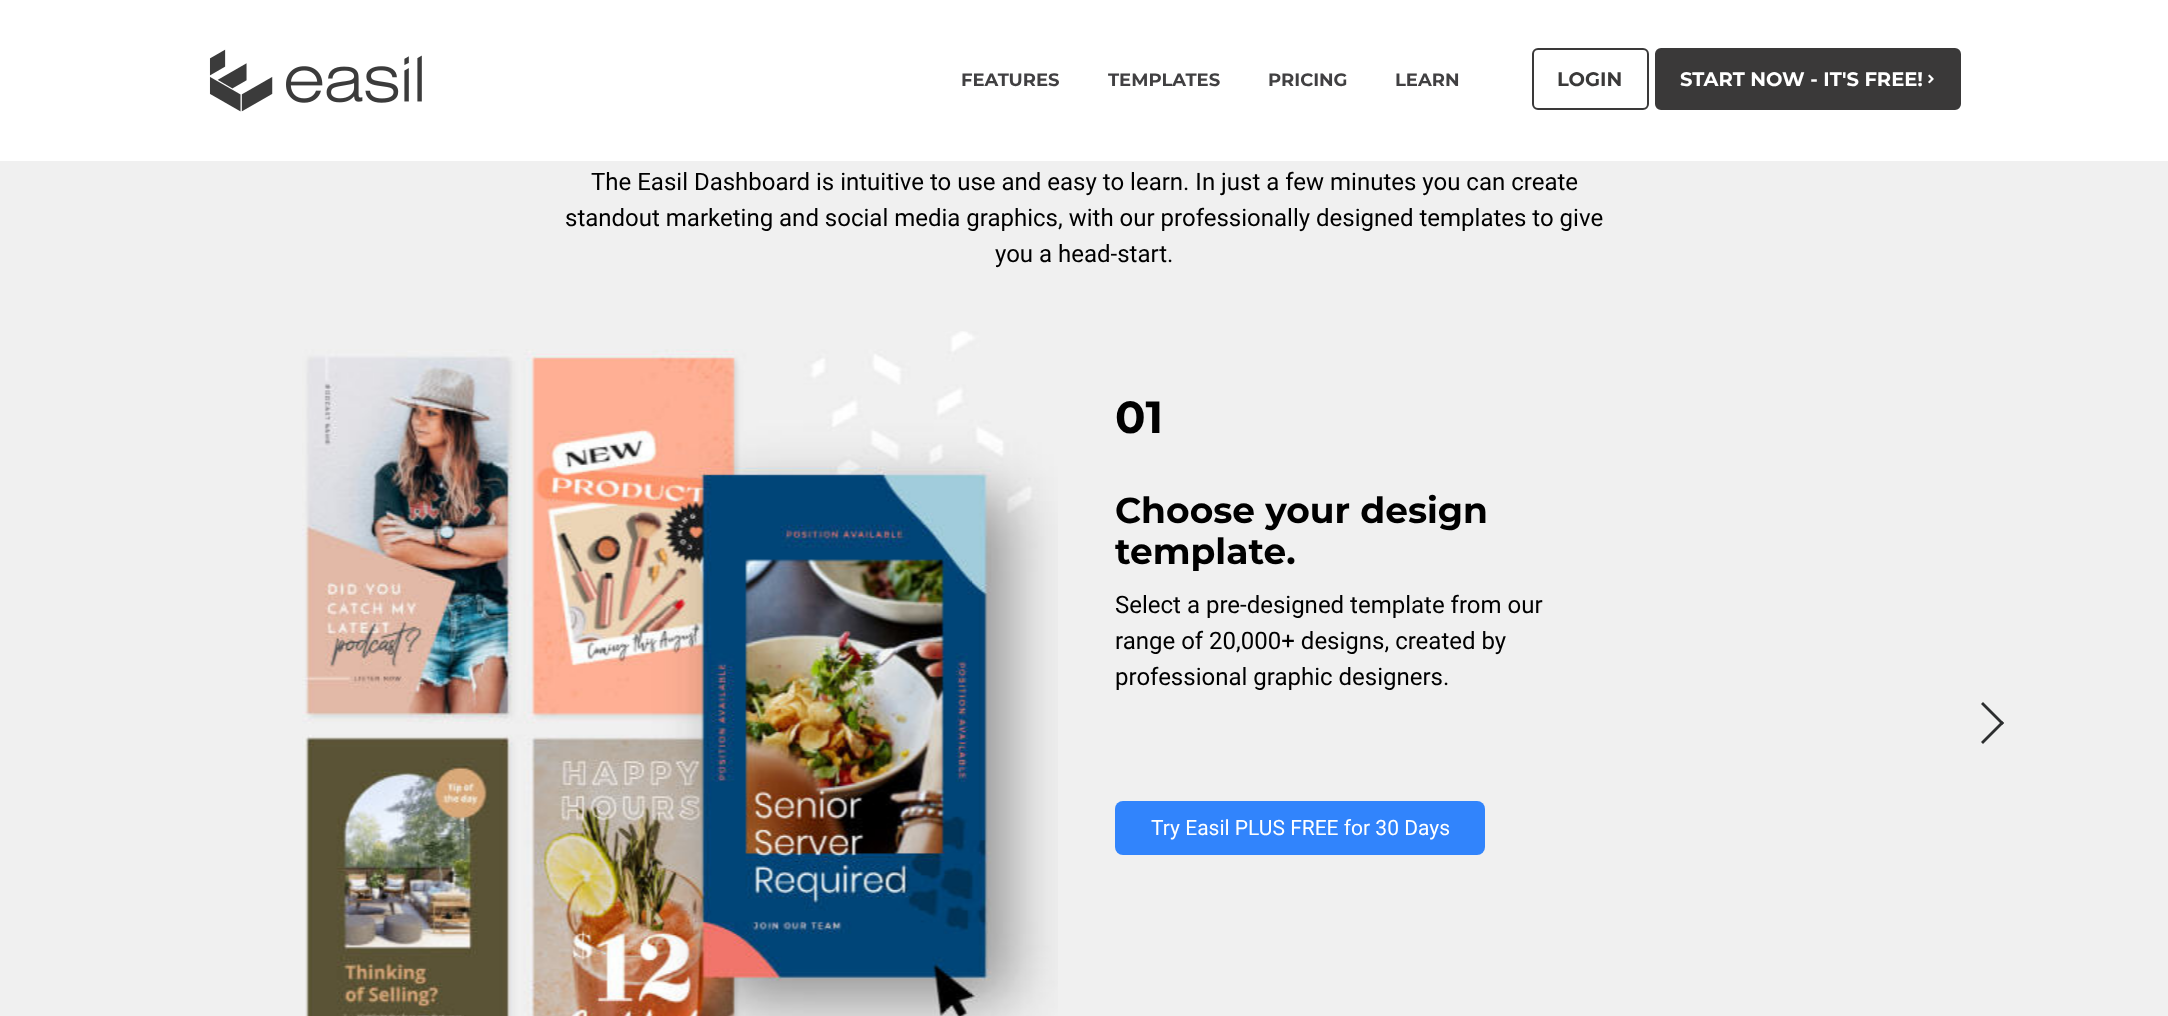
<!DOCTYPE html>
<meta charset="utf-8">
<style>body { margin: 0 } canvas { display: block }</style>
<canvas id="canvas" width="2168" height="1016"></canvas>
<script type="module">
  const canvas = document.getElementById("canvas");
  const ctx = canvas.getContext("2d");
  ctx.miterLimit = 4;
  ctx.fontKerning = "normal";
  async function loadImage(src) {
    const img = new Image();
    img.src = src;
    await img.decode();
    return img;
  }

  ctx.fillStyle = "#f0f0f0";
  ctx.fillRect(0, 0, 2168, 1016);
  ctx.fillStyle = "#ffffff";
  ctx.fillRect(0, 0, 2168, 161);
  ctx.drawImage(await loadImage("img1.png"), 209, 49, 213, 63);
  ctx.font = "bold 18px Montserrat";
  ctx.fillStyle = "#414042";
  ctx.fillText("FEATURES", 961, 86);
  ctx.fillText("TEMPLATES", 1108, 86);
  ctx.fillText("PRICING", 1268, 86);
  ctx.fillText("LEARN", 1395, 86);
  ctx.beginPath();
  ctx.roundRect(1533, 49, 115, 60, 5);
  ctx.strokeStyle = "#3a3939";
  ctx.lineWidth = 2;
  ctx.stroke();
  ctx.font = "bold 19.5px Montserrat";
  ctx.fillStyle = "#3a3939";
  ctx.fillText("LOGIN", 1557, 86);
  ctx.beginPath();
  ctx.roundRect(1656, 49, 304, 60, 5);
  ctx.fill();
  ctx.stroke();
  ctx.fillStyle = "#ffffff";
  ctx.fillText("START NOW - IT'S FREE!", 1680, 86);
  ctx.drawImage(await loadImage("img2.png"), 1928, 74, 6, 10);
  ctx.font = "24px Roboto";
  ctx.fillStyle = "#000000";
  ctx.fillText("The Easil Dashboard is intuitive to use and easy to learn. In just a few minutes you can create", 591, 190);
  ctx.fillText("standout marketing and social media graphics, with our professionally designed templates to give", 565, 226);
  ctx.fillText("you a head-start.", 995, 262);
  ctx.drawImage(await loadImage("img3.png"), 302, 331, 756, 685);
  ctx.font = "bold 45px Montserrat";
  ctx.fillText("01", 1115, 433);
  ctx.font = "bold 36px Montserrat";
  ctx.fillText("Choose your design", 1115, 523);
  ctx.fillText("template.", 1115, 564);
  ctx.font = "24px Roboto";
  ctx.fillText("Select a pre-designed template from our", 1115, 613);
  ctx.fillText("range of 20,000+ designs, created by", 1115, 649);
  ctx.fillText("professional graphic designers.", 1115, 685);
  ctx.fillStyle = "#3184fc";
  ctx.beginPath();
  ctx.roundRect(1115, 801, 370, 54, 8);
  ctx.fill();
  ctx.font = "21px Roboto";
  ctx.fillStyle = "#ffffff";
  ctx.fillText("Try Easil PLUS FREE for 30 Days", 1151, 835);
  ctx.fillStyle = "#2c2e2f";
  ctx.beginPath();
  ctx.moveTo(1981, 704);
  ctx.lineTo(1983, 702);
  ctx.lineTo(2004, 723);
  ctx.lineTo(2002, 725);
  ctx.closePath();
  ctx.fill();
  ctx.beginPath();
  ctx.moveTo(1981, 742);
  ctx.lineTo(2002, 721);
  ctx.lineTo(2004, 723);
  ctx.lineTo(1983, 744);
  ctx.closePath();
  ctx.fill();
</script>
